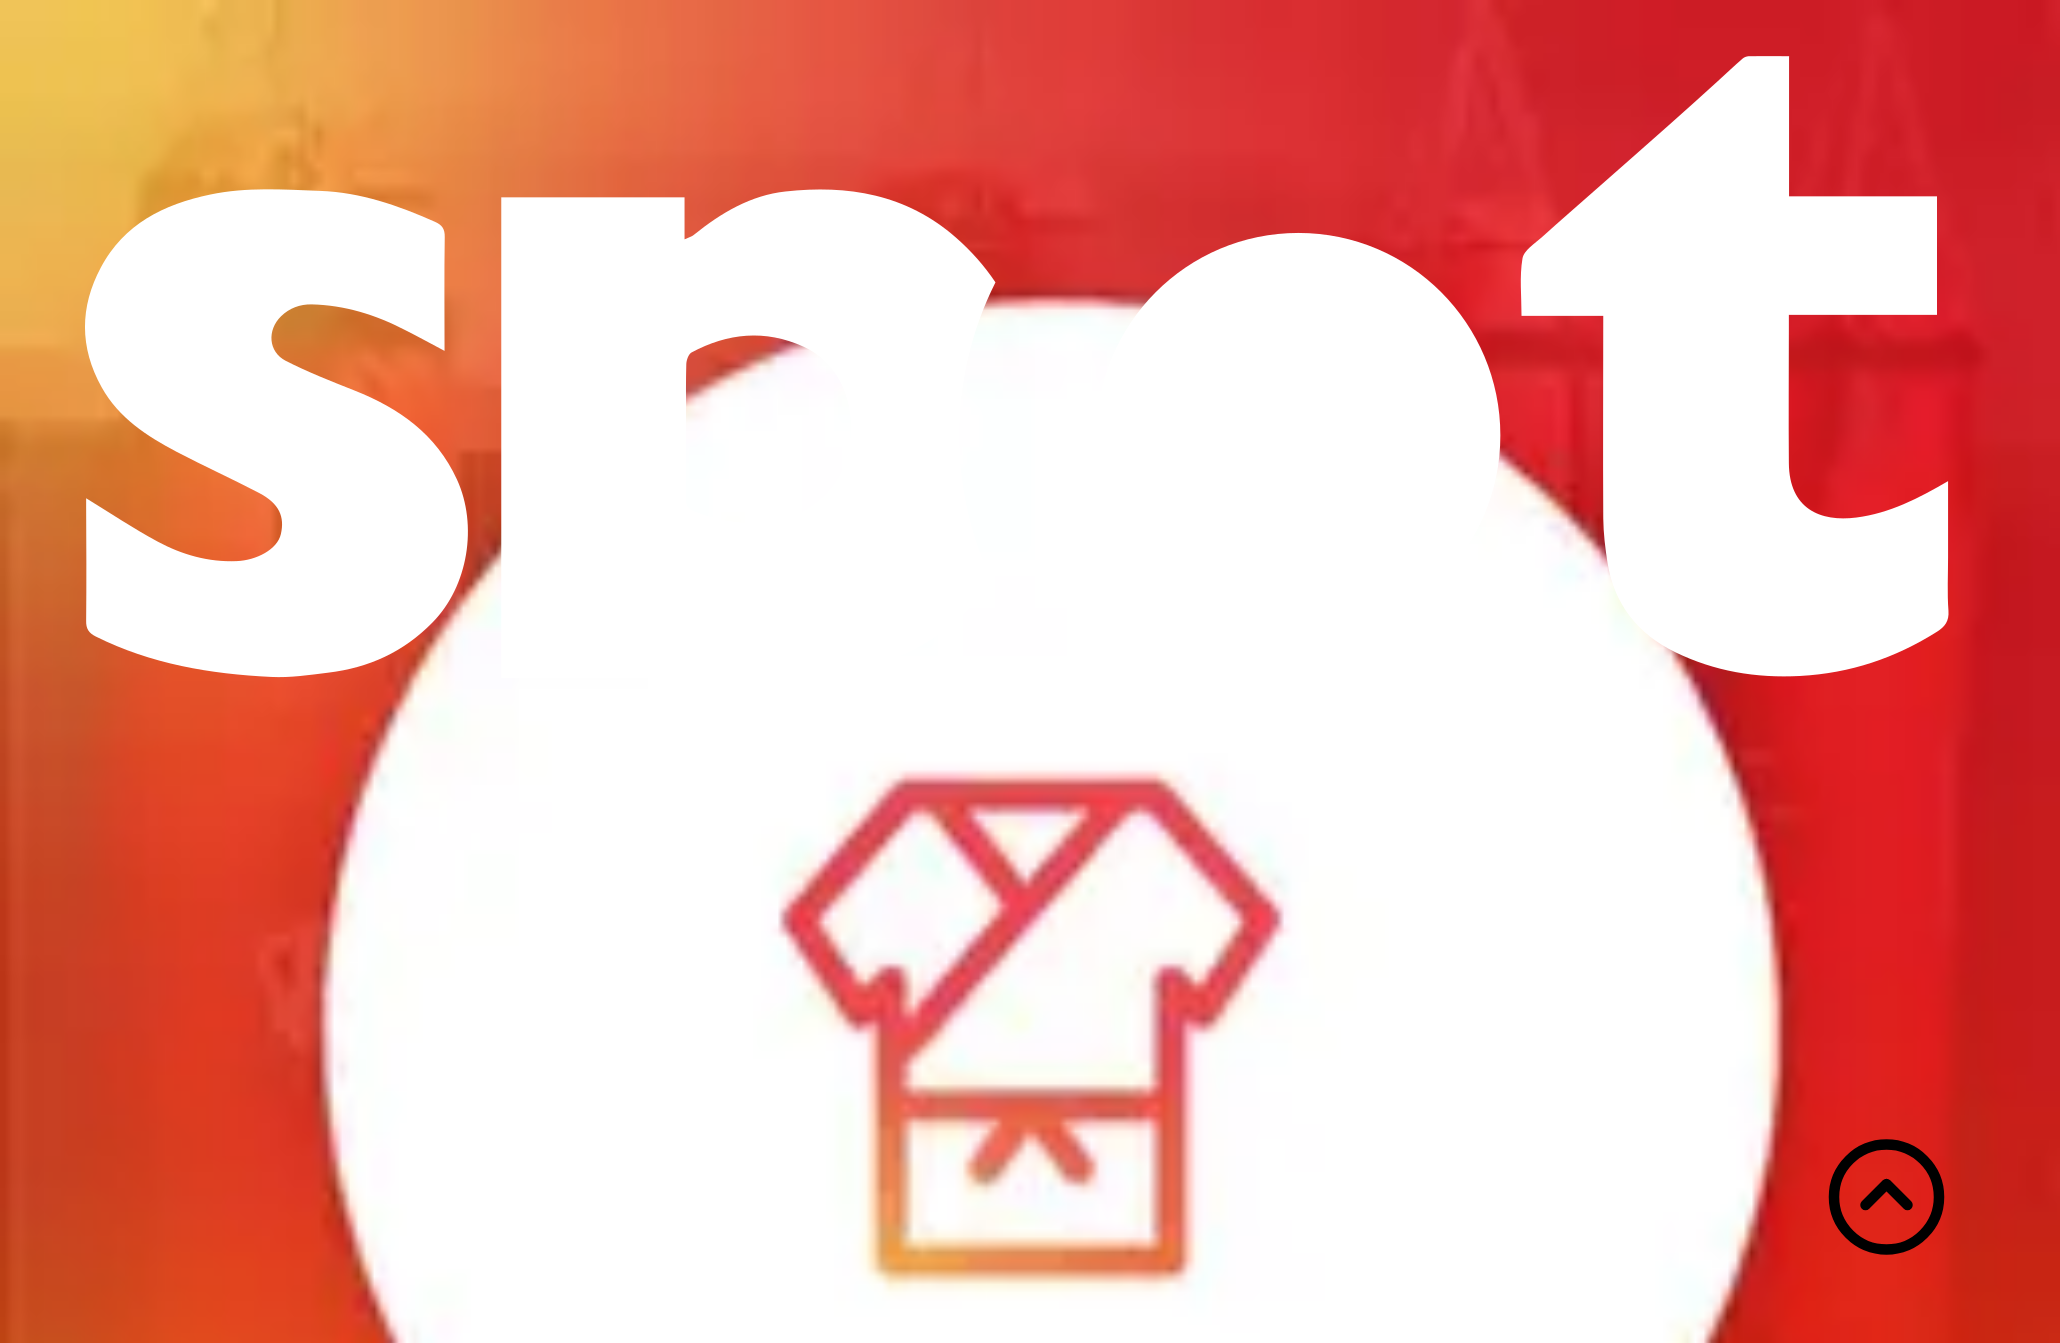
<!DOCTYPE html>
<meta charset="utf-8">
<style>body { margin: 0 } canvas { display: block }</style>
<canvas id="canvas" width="2060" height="1343"></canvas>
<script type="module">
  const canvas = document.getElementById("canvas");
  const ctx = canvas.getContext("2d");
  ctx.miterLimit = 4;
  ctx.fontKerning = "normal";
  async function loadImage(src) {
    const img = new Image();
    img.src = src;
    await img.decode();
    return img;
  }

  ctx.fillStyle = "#ffffff";
  ctx.fillRect(0, 0, 2060, 1343);
  ctx.drawImage(await loadImage("img1.png"), 0, 0, 2060, 1343);
  ctx.drawImage(await loadImage("img2.png"), 85, 56, 1864, 622);
  ctx.beginPath();
  ctx.arc(1886.5, 1197, 52.5, 0, Math.PI * 2);
  ctx.strokeStyle = "#000000";
  ctx.lineWidth = 10.5;
  ctx.stroke();
  ctx.beginPath();
  ctx.moveTo(1865.5, 1205);
  ctx.lineTo(1886.5, 1184);
  ctx.lineTo(1907.5, 1205);
  ctx.lineCap = "round";
  ctx.lineJoin = "round";
  ctx.stroke();
</script>
